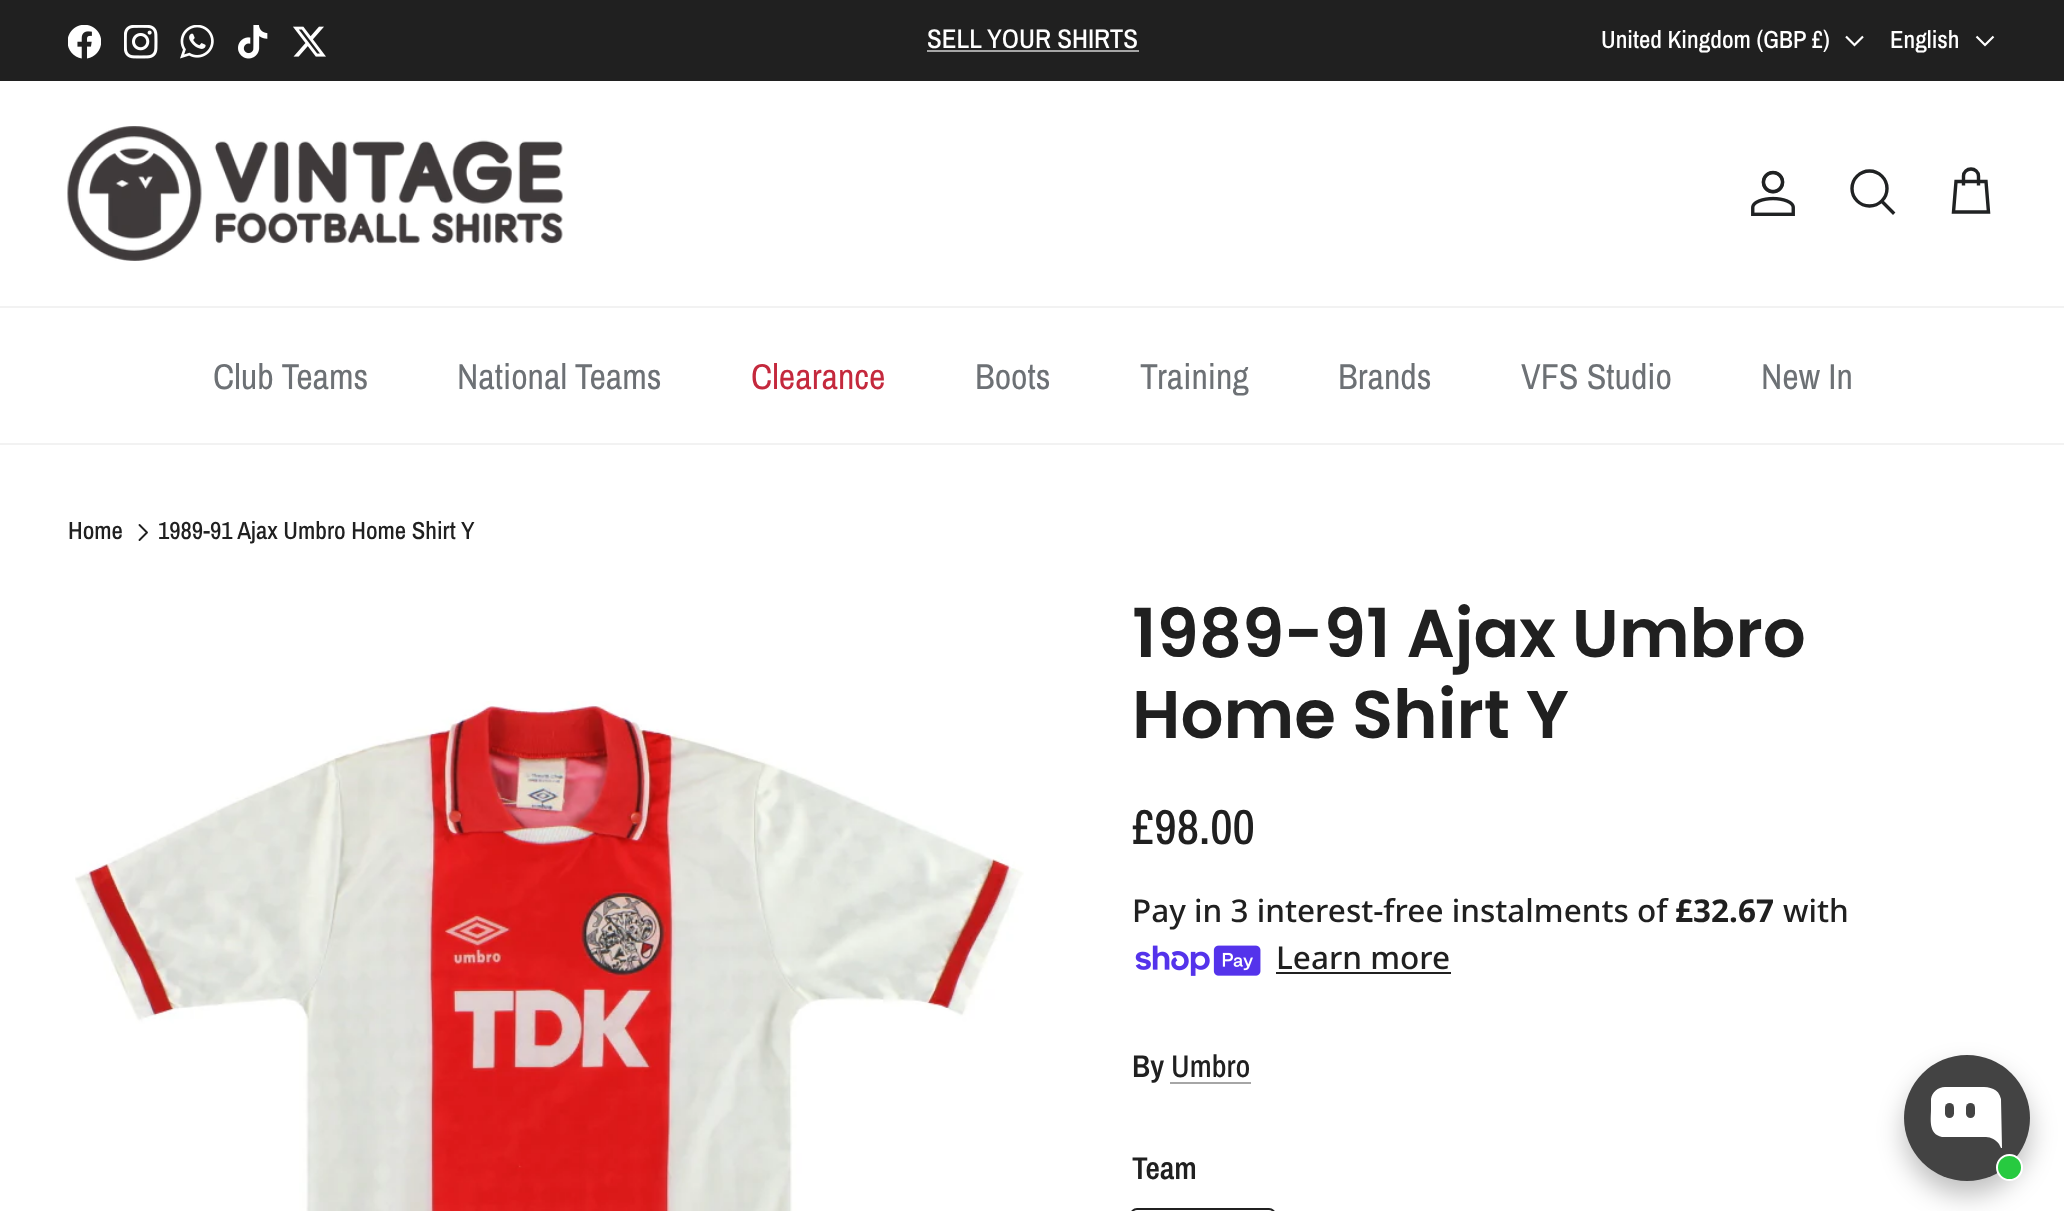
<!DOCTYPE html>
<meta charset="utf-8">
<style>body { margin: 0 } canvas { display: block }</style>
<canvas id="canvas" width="2064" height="1211"></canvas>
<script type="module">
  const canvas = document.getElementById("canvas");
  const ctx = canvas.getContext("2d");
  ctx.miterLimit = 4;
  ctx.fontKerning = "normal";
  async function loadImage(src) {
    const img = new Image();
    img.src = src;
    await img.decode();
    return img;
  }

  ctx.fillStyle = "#ffffff";
  ctx.fillRect(0, 0, 2064, 1211);
  ctx.fillStyle = "#202020";
  ctx.fillRect(0, 0, 2064, 81);
  ctx.drawImage(await loadImage("img1.png"), 68, 25, 33, 34);
  ctx.drawImage(await loadImage("img2.png"), 124, 25, 34, 34);
  ctx.drawImage(await loadImage("img3.png"), 180, 25, 34, 34);
  ctx.drawImage(await loadImage("img4.png"), 238, 25, 30, 34);
  ctx.drawImage(await loadImage("img5.png"), 293, 26, 33, 31);
  ctx.font = "500 27px Archivo Narrow";
  ctx.fillStyle = "#ffffff";
  ctx.fillText("SELL YOUR SHIRTS", 927, 48);
  ctx.fillStyle = "#a6a6a6";
  ctx.fillRect(927, 50, 212, 2);
  ctx.font = "500 24.75px Archivo Narrow";
  ctx.fillStyle = "#ffffff";
  ctx.fillText("United Kingdom (GBP £)", 1601, 48);
  ctx.beginPath();
  ctx.moveTo(1863, 36.5);
  ctx.lineTo(1854.5, 45);
  ctx.lineTo(1846, 36.5);
  ctx.strokeStyle = "#ffffff";
  ctx.lineWidth = 2.2;
  ctx.stroke();
  ctx.fillText("English", 1890, 48);
  ctx.beginPath();
  ctx.moveTo(1993.5, 36.5);
  ctx.lineTo(1985, 45);
  ctx.lineTo(1976.5, 36.5);
  ctx.stroke();
  ctx.fillStyle = "#f2f2f2";
  ctx.fillRect(0, 306, 2064, 2);
  ctx.drawImage(await loadImage("img6.png"), 67, 126, 496, 135);
  ctx.drawImage(await loadImage("img7.png"), 1751, 170, 44, 46);
  ctx.beginPath();
  ctx.arc(1869.5, 188.5, 17.5, 0, Math.PI * 2);
  ctx.strokeStyle = "#202223";
  ctx.lineWidth = 3.4;
  ctx.stroke();
  ctx.beginPath();
  ctx.moveTo(1883, 202.5);
  ctx.lineTo(1893, 212.5);
  ctx.lineCap = "square";
  ctx.stroke();
  ctx.beginPath();
  ctx.moveTo(1978.5, 185.5);
  ctx.lineTo(1978.5, 176);
  ctx.bezierCurveTo(1978.5, 172, 1975, 169, 1971, 169);
  ctx.bezierCurveTo(1967, 169, 1963.5, 172, 1963.5, 176);
  ctx.lineTo(1963.5, 185.5);
  ctx.moveTo(1956, 181.5);
  ctx.lineTo(1986, 181.5);
  ctx.lineTo(1988.5, 212);
  ctx.lineTo(1953.5, 212);
  ctx.closePath();
  ctx.lineCap = "butt";
  ctx.stroke();
  ctx.fillRect(0, 443, 2064, 2);
  ctx.font = "36px Archivo Narrow";
  ctx.fillStyle = "#6d7175";
  ctx.fillText("Club Teams", 213, 389);
  ctx.fillText("National Teams", 457, 389);
  ctx.fillStyle = "#c4293d";
  ctx.fillText("Clearance", 751, 389);
  ctx.fillStyle = "#6d7175";
  ctx.fillText("Boots", 975, 389);
  ctx.fillText("Training", 1140, 389);
  ctx.fillText("Brands", 1338, 389);
  ctx.fillText("VFS Studio", 1521, 389);
  ctx.fillText("New In", 1761, 389);
  ctx.font = "500 24.75px Archivo Narrow";
  ctx.fillStyle = "#202020";
  ctx.fillText("Home", 68, 539);
  ctx.beginPath();
  ctx.moveTo(139.5, 540);
  ctx.lineTo(147, 532.5);
  ctx.lineTo(139.5, 525);
  ctx.strokeStyle = "#202020";
  ctx.lineWidth = 1.9;
  ctx.lineCap = "round";
  ctx.lineJoin = "round";
  ctx.stroke();
  ctx.fillText("1989-91 Ajax Umbro Home Shirt", 158, 539);
  ctx.fillText("Y", 461, 539);
  ctx.drawImage(await loadImage("img8.png"), 75, 701, 949, 510);
  ctx.font = "600 67.5px Poppins";
  ctx.fillText("1989-91 Ajax Umbro", 1132, 657);
  ctx.fillText("Home Shirt Y", 1132, 738);
  ctx.font = "500 49px Archivo Narrow";
  ctx.fillText("£98.00", 1132, 844);
  ctx.font = "500 31.5px Noto Sans";
  ctx.fillText("Pay in 3 interest-free instalments of", 1132, 922);
  ctx.font = "bold 31.5px Noto Sans";
  ctx.fillText("£32.67", 1675, 922);
  ctx.font = "500 31.5px Noto Sans";
  ctx.fillText("with", 1783, 922);
  ctx.drawImage(await loadImage("img9.png"), 1135, 945, 126, 31);
  ctx.fillText("Learn more", 1276, 969);
  ctx.fillRect(1276, 972, 175, 2);
  ctx.font = "600 31.5px Archivo Narrow";
  ctx.fillText("By", 1132, 1077);
  ctx.font = "500 31.5px Archivo Narrow";
  ctx.fillText("Umbro", 1171, 1077);
  ctx.fillStyle = "#a6a6a6";
  ctx.fillRect(1170, 1082, 81, 2);
  ctx.font = "600 31.5px Archivo Narrow";
  ctx.fillStyle = "#202020";
  ctx.fillText("Team", 1132, 1179);
  ctx.beginPath();
  ctx.roundRect(1131, 1209, 144, 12, 8);
  ctx.lineWidth = 2;
  ctx.lineJoin = "miter";
  ctx.stroke();
  ctx.fillStyle = "rgba(0, 0, 0, 0.25)";
  ctx.filter = "blur(13.5px)";
  ctx.beginPath();
  ctx.roundRect(1904, 1069, 126, 126, 63);
  ctx.fill();
  ctx.filter = "none";
  ctx.fillStyle = "#434343";
  ctx.beginPath();
  ctx.arc(1967, 1118, 63, 0, Math.PI * 2);
  ctx.fill();
  ctx.fillStyle = "#ffffff";
  ctx.beginPath();
  ctx.moveTo(1945, 1087);
  ctx.bezierCurveTo(1938, 1087, 1932, 1092, 1931, 1099);
  ctx.lineTo(1931, 1109);
  ctx.bezierCurveTo(1931, 1119, 1928, 1134, 1942, 1137);
  ctx.lineTo(1986, 1137);
  ctx.bezierCurveTo(1991, 1137, 1996, 1140, 1999, 1144);
  ctx.lineTo(2001, 1148);
  ctx.lineTo(2002, 1148);
  ctx.lineTo(2001, 1099);
  ctx.bezierCurveTo(1998, 1085, 1984, 1087, 1973, 1087);
  ctx.closePath();
  ctx.fill("evenodd");
  ctx.fillStyle = "#434343";
  ctx.beginPath();
  ctx.roundRect(1945, 1103, 9, 15, 4.5);
  ctx.fill();
  ctx.beginPath();
  ctx.roundRect(1966, 1103, 9, 15, 4.5);
  ctx.fill();
  ctx.fillStyle = "#27ca40";
  ctx.beginPath();
  ctx.arc(2009.5, 1167.5, 12.5, 0, Math.PI * 2);
  ctx.fill();
  ctx.strokeStyle = "#ffffff";
  ctx.stroke();
</script>
